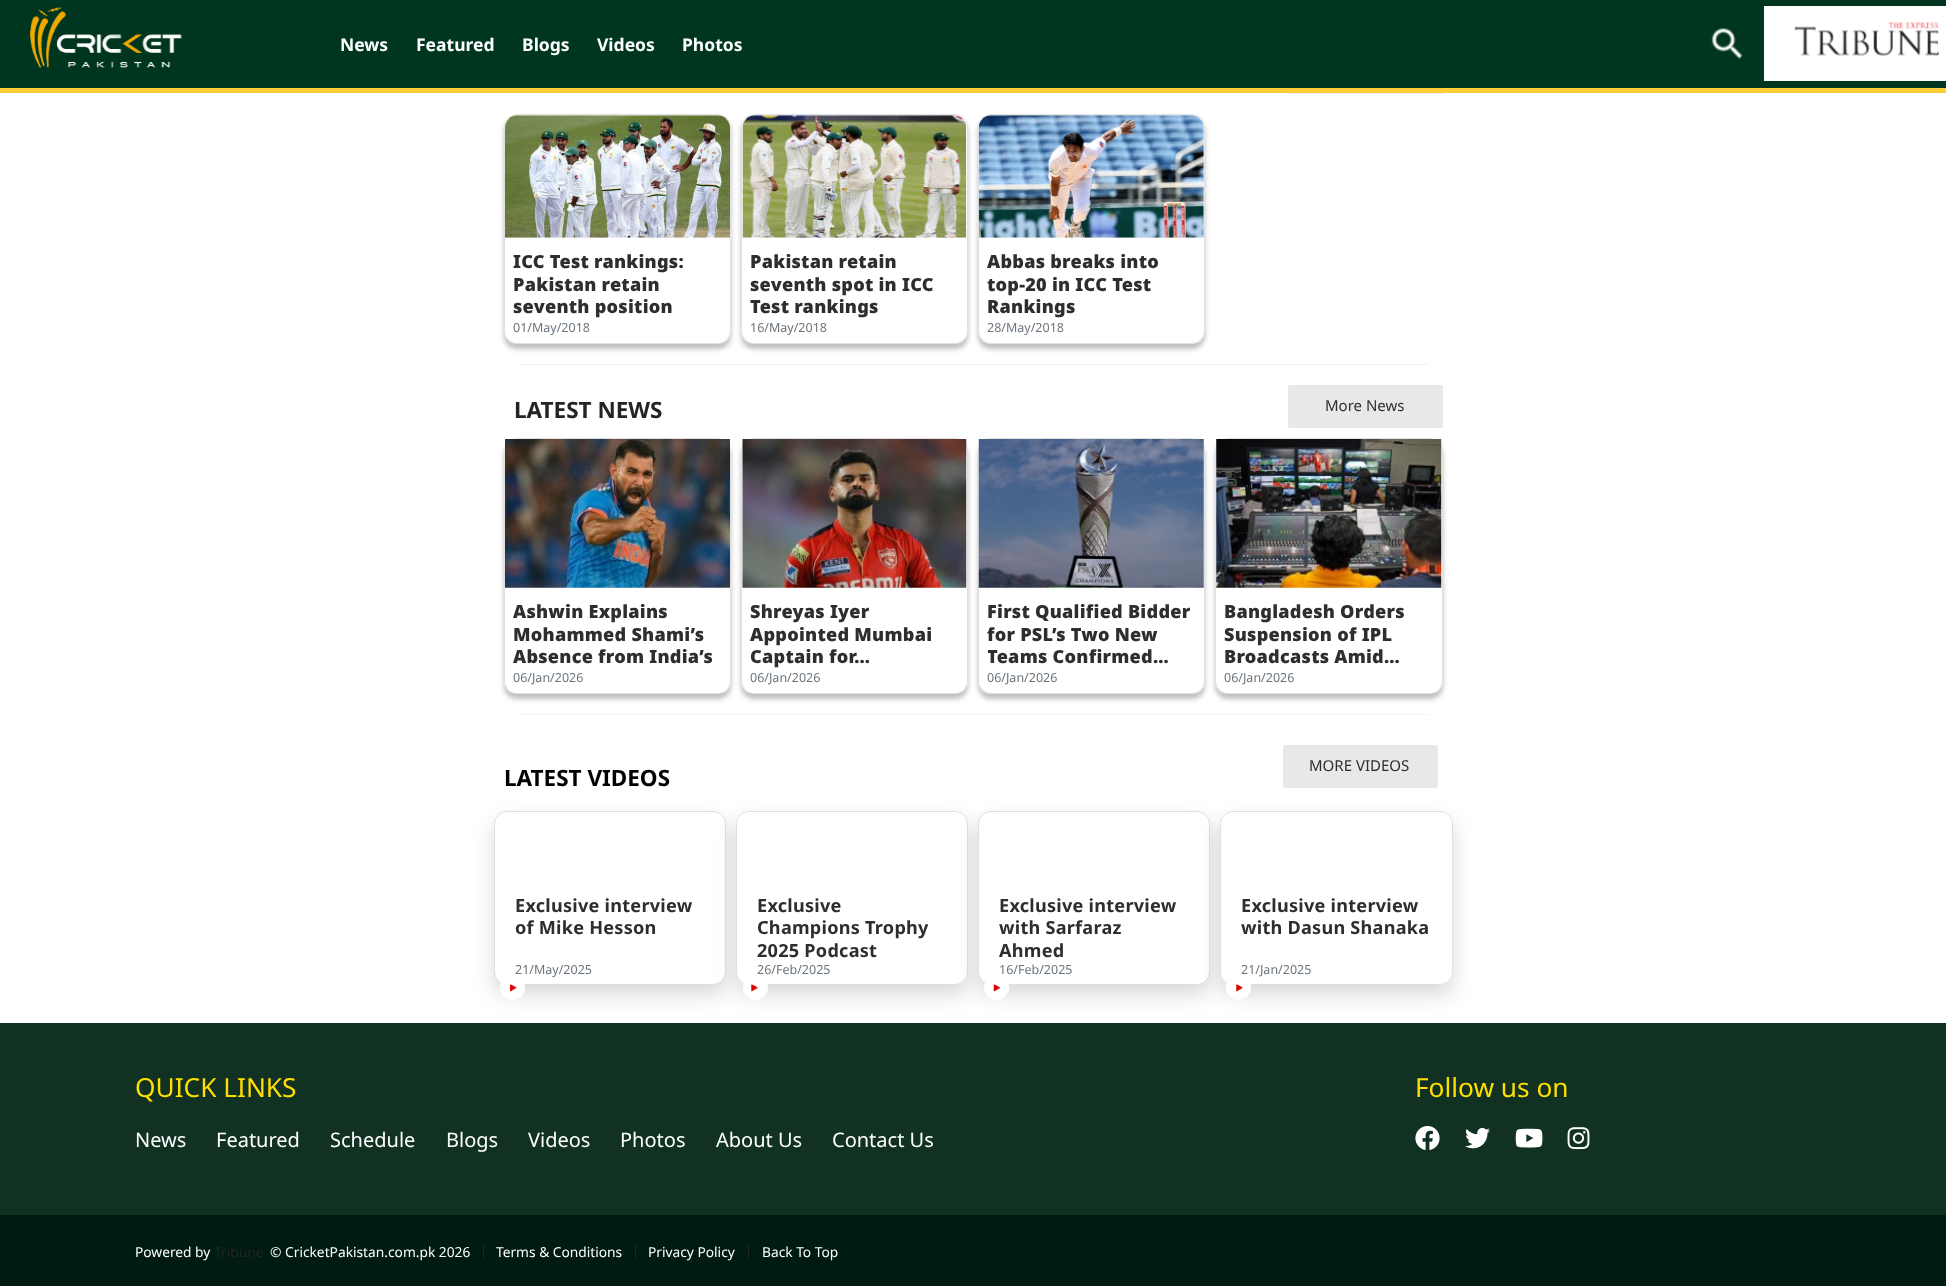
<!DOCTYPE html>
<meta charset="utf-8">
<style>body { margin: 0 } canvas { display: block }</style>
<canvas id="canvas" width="1946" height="1286"></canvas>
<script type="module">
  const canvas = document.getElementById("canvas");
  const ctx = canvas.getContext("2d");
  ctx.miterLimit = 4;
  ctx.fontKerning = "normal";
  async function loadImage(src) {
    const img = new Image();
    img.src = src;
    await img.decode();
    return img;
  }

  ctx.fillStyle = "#ffffff";
  ctx.fillRect(0, 0, 1946, 1286);
  ctx.fillStyle = "#e8e8e8";
  ctx.beginPath();
  ctx.roundRect(1288, 51, 155, 43, 2.5);
  ctx.fill();
  ctx.fillStyle = "#003620";
  ctx.fillRect(0, 0, 1946, 88);
  ctx.fillStyle = "#ffcd38";
  ctx.fillRect(0, 88, 1946, 5);
  ctx.drawImage(await loadImage("img1.png"), 30, 7, 152, 61);
  ctx.font = "bold 17.5px 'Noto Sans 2'";
  ctx.fillStyle = "#ffffff";
  ctx.fillText("News", 340, 51);
  ctx.fillText("Featured", 416, 51);
  ctx.fillText("Blogs", 522, 51);
  ctx.fillText("Videos", 597, 51);
  ctx.fillText("Photos", 682, 51);
  ctx.fillRect(1764, 6, 182, 75);
  ctx.drawImage(await loadImage("img3.png"), 1794, 22, 145, 34);
  ctx.beginPath();
  ctx.moveTo(1763, 6);
  ctx.lineTo(1799, 6);
  ctx.lineTo(1764, 81);
  ctx.lineTo(1728, 81);
  ctx.closePath();
  ctx.fill();
  ctx.fillStyle = "#003620";
  ctx.fillRect(1728, 6, 36, 75);
  ctx.drawImage(await loadImage("img2.png"), 1711, 28, 32, 32);
  ctx.fillStyle = "rgba(0, 0, 0, 0.25)";
  ctx.filter = "blur(2.5px)";
  ctx.beginPath();
  ctx.roundRect(504, 119, 227, 230, 13);
  ctx.fill();
  ctx.filter = "none";
  ctx.fillStyle = "#ffffff";
  ctx.beginPath();
  ctx.roundRect(504, 114, 227, 230, 13);
  ctx.fill();
  ctx.beginPath();
  ctx.roundRect(504.5, 114.5, 226, 229, 12.5);
  ctx.strokeStyle = "rgba(0, 0, 0, 0.12)";
  ctx.stroke();
  ctx.drawImage(await loadImage("img4.png"), 505, 115, 225, 123);
  ctx.letterSpacing = "0.25px";
  ctx.font = "900 18.1px Noto Sans";
  ctx.fillStyle = "#2f2e2e";
  ctx.fillText("ICC Test rankings:", 513, 268);
  ctx.fillText("Pakistan retain", 513, 291);
  ctx.fillText("seventh position", 513, 313);
  ctx.letterSpacing = "0px";
  ctx.font = "12.5px Noto Sans";
  ctx.fillStyle = "#6c757d";
  ctx.fillText("01/May/2018", 513, 332);
  ctx.fillStyle = "rgba(0, 0, 0, 0.25)";
  ctx.filter = "blur(2.5px)";
  ctx.beginPath();
  ctx.roundRect(741, 119, 227, 230, 13);
  ctx.fill();
  ctx.filter = "none";
  ctx.fillStyle = "#ffffff";
  ctx.beginPath();
  ctx.roundRect(741, 114, 227, 230, 13);
  ctx.fill();
  ctx.beginPath();
  ctx.roundRect(741.5, 114.5, 226, 229, 12.5);
  ctx.stroke();
  ctx.drawImage(await loadImage("img5.png"), 742, 115, 225, 123);
  ctx.letterSpacing = "0.25px";
  ctx.font = "900 18.1px Noto Sans";
  ctx.fillStyle = "#2f2e2e";
  ctx.fillText("Pakistan retain", 750, 268);
  ctx.fillText("seventh spot in ICC", 750, 291);
  ctx.fillText("Test rankings", 750, 313);
  ctx.letterSpacing = "0px";
  ctx.font = "12.5px Noto Sans";
  ctx.fillStyle = "#6c757d";
  ctx.fillText("16/May/2018", 750, 332);
  ctx.fillStyle = "rgba(0, 0, 0, 0.25)";
  ctx.filter = "blur(2.5px)";
  ctx.beginPath();
  ctx.roundRect(978, 119, 227, 230, 13);
  ctx.fill();
  ctx.filter = "none";
  ctx.fillStyle = "#ffffff";
  ctx.beginPath();
  ctx.roundRect(978, 114, 227, 230, 13);
  ctx.fill();
  ctx.beginPath();
  ctx.roundRect(978.5, 114.5, 226, 229, 12.5);
  ctx.stroke();
  ctx.drawImage(await loadImage("img6.png"), 978, 115, 226, 123);
  ctx.letterSpacing = "0.25px";
  ctx.font = "900 18.1px Noto Sans";
  ctx.fillStyle = "#2f2e2e";
  ctx.fillText("Abbas breaks into", 987, 268);
  ctx.fillText("top-20 in ICC Test", 987, 291);
  ctx.fillText("Rankings", 987, 313);
  ctx.letterSpacing = "0px";
  ctx.font = "12.5px Noto Sans";
  ctx.fillStyle = "#6c757d";
  ctx.fillText("28/May/2018", 987, 332);
  ctx.fillStyle = "#f2f2f2";
  ctx.fillRect(519, 364, 909, 1);
  ctx.font = "bold 22.5px Noto Sans";
  ctx.fillStyle = "#242424";
  ctx.fillText("LATEST NEWS", 514, 418);
  ctx.fillStyle = "#e8e8e8";
  ctx.beginPath();
  ctx.roundRect(1288, 385, 155, 43, 2.5);
  ctx.fill();
  ctx.font = "15px Noto Sans";
  ctx.fillStyle = "#2f2e2e";
  ctx.fillText("More News", 1325, 411);
  ctx.fillStyle = "rgba(0, 0, 0, 0.25)";
  ctx.filter = "blur(2.5px)";
  ctx.beginPath();
  ctx.roundRect(504, 443, 227, 256, 13);
  ctx.fill();
  ctx.filter = "none";
  ctx.fillStyle = "#ffffff";
  ctx.beginPath();
  ctx.roundRect(504, 438, 227, 256, 13);
  ctx.fill();
  ctx.beginPath();
  ctx.roundRect(504.5, 438.5, 226, 255, 12.5);
  ctx.stroke();
  ctx.drawImage(await loadImage("img7.png"), 505, 439, 225, 149);
  ctx.letterSpacing = "0.25px";
  ctx.font = "900 18.1px Noto Sans";
  ctx.fillStyle = "#2f2e2e";
  ctx.fillText("Ashwin Explains", 513, 618);
  ctx.fillText("Mohammed Shami’s", 513, 641);
  ctx.fillText("Absence from India’s", 513, 663);
  ctx.letterSpacing = "0px";
  ctx.font = "12.5px Noto Sans";
  ctx.fillStyle = "#6c757d";
  ctx.fillText("06/Jan/2026", 513, 682);
  ctx.fillStyle = "rgba(0, 0, 0, 0.25)";
  ctx.filter = "blur(2.5px)";
  ctx.beginPath();
  ctx.roundRect(741, 443, 227, 256, 13);
  ctx.fill();
  ctx.filter = "none";
  ctx.fillStyle = "#ffffff";
  ctx.beginPath();
  ctx.roundRect(741, 438, 227, 256, 13);
  ctx.fill();
  ctx.beginPath();
  ctx.roundRect(741.5, 438.5, 226, 255, 12.5);
  ctx.stroke();
  ctx.drawImage(await loadImage("img8.png"), 742, 439, 225, 149);
  ctx.letterSpacing = "0.25px";
  ctx.font = "900 18.1px Noto Sans";
  ctx.fillStyle = "#2f2e2e";
  ctx.fillText("Shreyas Iyer", 750, 618);
  ctx.fillText("Appointed Mumbai", 750, 641);
  ctx.fillText("Captain for…", 750, 663);
  ctx.letterSpacing = "0px";
  ctx.font = "12.5px Noto Sans";
  ctx.fillStyle = "#6c757d";
  ctx.fillText("06/Jan/2026", 750, 682);
  ctx.fillStyle = "rgba(0, 0, 0, 0.25)";
  ctx.filter = "blur(2.5px)";
  ctx.beginPath();
  ctx.roundRect(978, 443, 227, 256, 13);
  ctx.fill();
  ctx.filter = "none";
  ctx.fillStyle = "#ffffff";
  ctx.beginPath();
  ctx.roundRect(978, 438, 227, 256, 13);
  ctx.fill();
  ctx.beginPath();
  ctx.roundRect(978.5, 438.5, 226, 255, 12.5);
  ctx.stroke();
  ctx.drawImage(await loadImage("img9.png"), 978, 439, 226, 149);
  ctx.letterSpacing = "0.25px";
  ctx.font = "900 18.1px Noto Sans";
  ctx.fillStyle = "#2f2e2e";
  ctx.fillText("First Qualified Bidder", 987, 618);
  ctx.fillText("for PSL’s Two New", 987, 641);
  ctx.save();
  ctx.beginPath();
  ctx.rect(988, 600, 208, 68);
  ctx.clip();
  ctx.fillText("Teams Confirmed…", 987, 663);
  ctx.restore();
  ctx.letterSpacing = "0px";
  ctx.font = "12.5px Noto Sans";
  ctx.fillStyle = "#6c757d";
  ctx.fillText("06/Jan/2026", 987, 682);
  ctx.fillStyle = "rgba(0, 0, 0, 0.25)";
  ctx.filter = "blur(2.5px)";
  ctx.beginPath();
  ctx.roundRect(1215, 443, 228, 256, 13);
  ctx.fill();
  ctx.filter = "none";
  ctx.fillStyle = "#ffffff";
  ctx.beginPath();
  ctx.roundRect(1215, 438, 228, 256, 13);
  ctx.fill();
  ctx.beginPath();
  ctx.roundRect(1215.5, 438.5, 227, 255, 12.5);
  ctx.stroke();
  ctx.drawImage(await loadImage("img10.png"), 1216, 439, 226, 149);
  ctx.letterSpacing = "0.25px";
  ctx.font = "900 18.1px Noto Sans";
  ctx.fillStyle = "#2f2e2e";
  ctx.fillText("Bangladesh Orders", 1224, 618);
  ctx.fillText("Suspension of IPL", 1224, 641);
  ctx.fillText("Broadcasts Amid…", 1224, 663);
  ctx.letterSpacing = "0px";
  ctx.font = "12.5px Noto Sans";
  ctx.fillStyle = "#6c757d";
  ctx.fillText("06/Jan/2026", 1224, 682);
  ctx.fillStyle = "#f2f2f2";
  ctx.fillRect(519, 714, 909, 1);
  ctx.fillStyle = "#e8e8e8";
  ctx.beginPath();
  ctx.roundRect(1283, 745, 155, 43, 2.5);
  ctx.fill();
  ctx.font = "15px Noto Sans";
  ctx.fillStyle = "#2f2e2e";
  ctx.fillText("MORE VIDEOS", 1309, 771);
  ctx.font = "bold 22.5px Noto Sans";
  ctx.fillStyle = "#000000";
  ctx.fillText("LATEST VIDEOS", 504, 786);
  ctx.fillStyle = "#113122";
  ctx.fillRect(0, 1023, 1946, 192);
  ctx.fillStyle = "rgba(0, 0, 0, 0.15)";
  ctx.filter = "blur(10px)";
  ctx.beginPath();
  ctx.roundRect(494, 821, 232, 174, 13);
  ctx.fill();
  ctx.filter = "none";
  ctx.fillStyle = "#ffffff";
  ctx.beginPath();
  ctx.roundRect(494.5, 811.5, 231, 173, 12.5);
  ctx.fill();
  ctx.strokeStyle = "#dfdfdf";
  ctx.stroke();
  ctx.letterSpacing = "0.25px";
  ctx.font = "bold 18.1px 'Noto Sans 2'";
  ctx.fillStyle = "#2f2e2e";
  ctx.fillText("Exclusive interview", 515, 912);
  ctx.fillText("of Mike Hesson", 515, 934);
  ctx.fillStyle = "#ffffff";
  ctx.beginPath();
  ctx.arc(512.5, 987.5, 12.5, 0, Math.PI * 2);
  ctx.fill();
  ctx.letterSpacing = "0px";
  ctx.font = "12.5px Noto Sans";
  ctx.fillStyle = "#6c757d";
  ctx.fillText("21/May/2025", 515, 974);
  ctx.drawImage(await loadImage("img11.png"), 510, 984, 7, 8);
  ctx.fillStyle = "rgba(0, 0, 0, 0.15)";
  ctx.filter = "blur(10px)";
  ctx.beginPath();
  ctx.roundRect(736, 821, 232, 174, 13);
  ctx.fill();
  ctx.filter = "none";
  ctx.fillStyle = "#ffffff";
  ctx.beginPath();
  ctx.roundRect(736, 811, 232, 174, 13);
  ctx.fill();
  ctx.beginPath();
  ctx.roundRect(736.5, 811.5, 231, 173, 12.5);
  ctx.strokeStyle = "rgba(0, 0, 0, 0.12)";
  ctx.stroke();
  ctx.letterSpacing = "0.25px";
  ctx.font = "bold 18.1px 'Noto Sans 2'";
  ctx.fillStyle = "#2f2e2e";
  ctx.fillText("Exclusive", 757, 912);
  ctx.fillText("Champions Trophy", 757, 934);
  ctx.fillText("2025 Podcast", 757, 957);
  ctx.letterSpacing = "0px";
  ctx.font = "12.5px Noto Sans";
  ctx.fillStyle = "#6c757d";
  ctx.fillText("26/Feb/2025", 757, 974);
  ctx.fillStyle = "#ffffff";
  ctx.beginPath();
  ctx.arc(755.5, 987.5, 12.5, 0, Math.PI * 2);
  ctx.fill();
  ctx.drawImage(await loadImage("img12.png"), 751, 984, 7, 8);
  ctx.fillStyle = "rgba(0, 0, 0, 0.15)";
  ctx.filter = "blur(10px)";
  ctx.beginPath();
  ctx.roundRect(978, 821, 232, 174, 13);
  ctx.fill();
  ctx.filter = "none";
  ctx.fillStyle = "#ffffff";
  ctx.beginPath();
  ctx.roundRect(978.5, 811.5, 231, 173, 12.5);
  ctx.fill();
  ctx.strokeStyle = "#dfdfdf";
  ctx.stroke();
  ctx.letterSpacing = "0.25px";
  ctx.font = "bold 18.1px 'Noto Sans 2'";
  ctx.fillStyle = "#2f2e2e";
  ctx.fillText("Exclusive interview", 999, 912);
  ctx.fillText("with Sarfaraz", 999, 934);
  ctx.fillText("Ahmed", 999, 957);
  ctx.letterSpacing = "0px";
  ctx.font = "12.5px Noto Sans";
  ctx.fillStyle = "#6c757d";
  ctx.fillText("16/Feb/2025", 999, 974);
  ctx.fillStyle = "#ffffff";
  ctx.beginPath();
  ctx.arc(996.5, 987.5, 12.5, 0, Math.PI * 2);
  ctx.fill();
  ctx.drawImage(await loadImage("img13.png"), 993, 984, 7, 8);
  ctx.fillStyle = "rgba(0, 0, 0, 0.15)";
  ctx.filter = "blur(10px)";
  ctx.beginPath();
  ctx.roundRect(1220, 821, 233, 174, 13);
  ctx.fill();
  ctx.filter = "none";
  ctx.fillStyle = "#ffffff";
  ctx.beginPath();
  ctx.roundRect(1220, 811, 233, 174, 13);
  ctx.fill();
  ctx.beginPath();
  ctx.roundRect(1220.5, 811.5, 232, 173, 12.5);
  ctx.strokeStyle = "rgba(0, 0, 0, 0.12)";
  ctx.stroke();
  ctx.letterSpacing = "0.25px";
  ctx.font = "bold 18.1px 'Noto Sans 2'";
  ctx.fillStyle = "#2f2e2e";
  ctx.fillText("Exclusive interview", 1241, 912);
  ctx.fillText("with Dasun Shanaka", 1241, 934);
  ctx.fillStyle = "#ffffff";
  ctx.beginPath();
  ctx.arc(1238.5, 987.5, 12.5, 0, Math.PI * 2);
  ctx.fill();
  ctx.letterSpacing = "0px";
  ctx.font = "12.5px Noto Sans";
  ctx.fillStyle = "#6c757d";
  ctx.fillText("21/Jan/2025", 1241, 974);
  ctx.drawImage(await loadImage("img12.png"), 1236, 984, 7, 8);
  ctx.font = "26.25px Noto Sans";
  ctx.fillStyle = "#ffdf00";
  ctx.fillText("QUICK LINKS", 135, 1097);
  ctx.font = "20px Noto Sans";
  ctx.fillStyle = "#ffffff";
  ctx.fillText("News", 135, 1147);
  ctx.fillText("Featured", 216, 1147);
  ctx.fillText("Schedule", 330, 1147);
  ctx.fillText("Blogs", 446, 1147);
  ctx.fillText("Videos", 528, 1147);
  ctx.fillText("Photos", 620, 1147);
  ctx.fillText("About Us", 716, 1147);
  ctx.fillText("Contact Us", 832, 1147);
  ctx.font = "26.25px Noto Sans";
  ctx.fillStyle = "#ffdf00";
  ctx.fillText("Follow us on", 1415, 1097);
  ctx.drawImage(await loadImage("img14.png"), 1415, 1126, 25, 24);
  ctx.drawImage(await loadImage("img15.png"), 1465, 1128, 25, 21);
  ctx.drawImage(await loadImage("img16.png"), 1515, 1128, 28, 20);
  ctx.drawImage(await loadImage("img17.png"), 1567, 1127, 23, 23);
  ctx.fillStyle = "#001b10";
  ctx.fillRect(0, 1215, 1946, 71);
  ctx.font = "13.75px Noto Sans";
  ctx.fillStyle = "#ffffff";
  ctx.fillText("Powered by", 135, 1257);
  ctx.fillStyle = "#242424";
  ctx.fillText("Tribune", 214, 1257);
  ctx.fillStyle = "#ffffff";
  ctx.fillText("© CricketPakistan.com.pk 2026", 270, 1257);
  ctx.fillStyle = "#242424";
  ctx.fillRect(483, 1245, 1, 13);
  ctx.fillStyle = "#ffffff";
  ctx.fillText("Terms & Conditions", 496, 1257);
  ctx.fillStyle = "#242424";
  ctx.fillRect(635, 1245, 1, 13);
  ctx.fillStyle = "#ffffff";
  ctx.fillText("Privacy Policy", 648, 1257);
  ctx.fillStyle = "#242424";
  ctx.fillRect(748, 1245, 1, 13);
  ctx.fillStyle = "#ffffff";
  ctx.fillText("Back To Top", 762, 1257);
</script>
